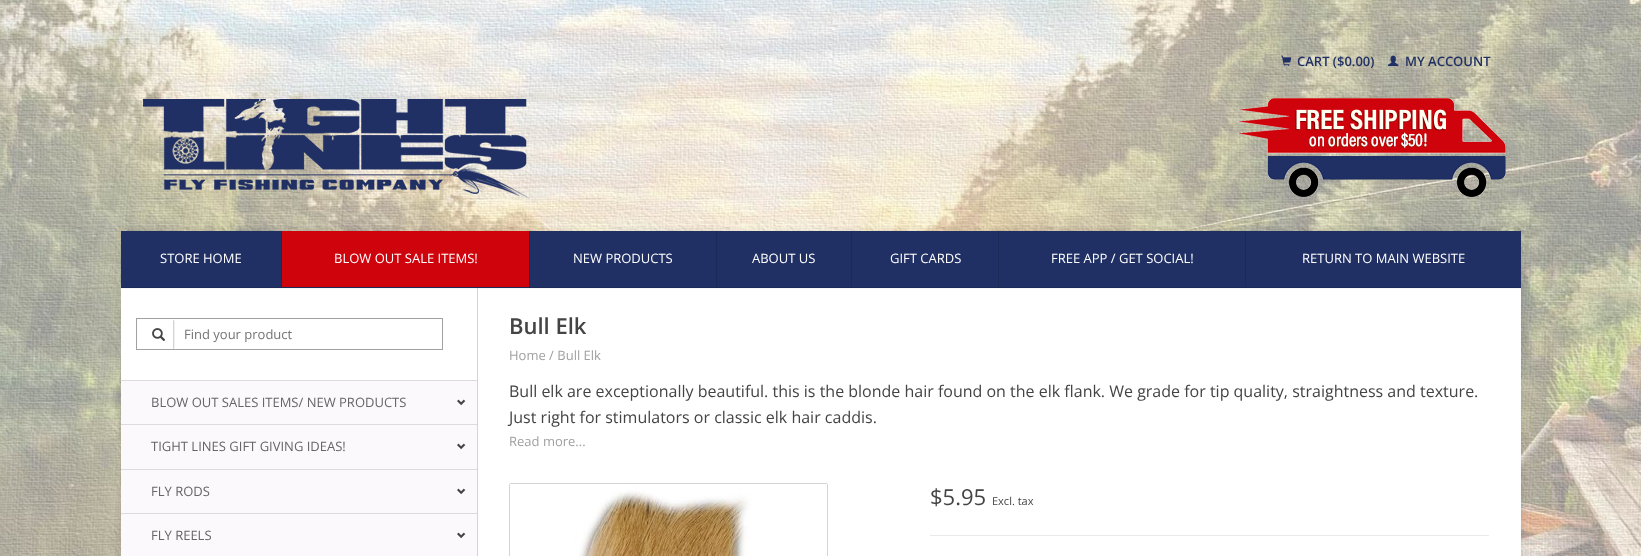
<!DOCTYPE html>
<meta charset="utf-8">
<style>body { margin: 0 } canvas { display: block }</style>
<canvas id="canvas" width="1641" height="556"></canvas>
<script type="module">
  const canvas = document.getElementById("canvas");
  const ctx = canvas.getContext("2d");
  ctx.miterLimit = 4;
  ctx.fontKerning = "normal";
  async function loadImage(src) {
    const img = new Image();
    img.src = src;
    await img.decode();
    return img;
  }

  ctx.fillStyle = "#ffffff";
  ctx.fillRect(0, 0, 1641, 556);
  ctx.drawImage(await loadImage("img1.png"), 0, 0, 1641, 556);
  ctx.drawImage(await loadImage("img2.png"), 1281, 55, 11, 11);
  ctx.font = "600 13px Open Sans";
  ctx.fillStyle = "#203064";
  ctx.fillText("CART ($0.00)", 1297, 66);
  ctx.drawImage(await loadImage("img3.png"), 1388, 55, 11, 11);
  ctx.fillText("MY ACCOUNT", 1405, 66);
  ctx.drawImage(await loadImage("img4.png"), 143, 99, 387, 100);
  ctx.drawImage(await loadImage("img5.png"), 1238, 98, 268, 99);
  ctx.fillStyle = "rgba(0, 0, 0, 0.13)";
  ctx.filter = "blur(3.5px)";
  ctx.beginPath();
  ctx.roundRect(121, 231, 1400, 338, 2);
  ctx.fill();
  ctx.filter = "none";
  ctx.fillStyle = "#ffffff";
  ctx.fillRect(121, 289, 1400, 267);
  ctx.fillStyle = "#f5f5f5";
  ctx.fillRect(121, 288, 1400, 1);
  ctx.fillStyle = "#1c2a58";
  ctx.fillRect(121, 287, 1400, 1);
  ctx.fillStyle = "#203064";
  ctx.fillRect(121, 231, 160, 56);
  ctx.fillStyle = "#1c2a58";
  ctx.fillRect(281, 231, 1, 56);
  ctx.font = "13px Open Sans";
  ctx.fillStyle = "#ffffff";
  ctx.fillText("STORE HOME", 160, 263);
  ctx.fillStyle = "#1c2a58";
  ctx.fillRect(529, 231, 1, 56);
  ctx.fillStyle = "#cf030c";
  ctx.fillRect(282, 231, 247, 56);
  ctx.fillStyle = "#ffffff";
  ctx.fillText("BLOW OUT SALE ITEMS!", 334, 263);
  ctx.fillStyle = "#203064";
  ctx.fillRect(530, 231, 186, 56);
  ctx.fillStyle = "#1c2a58";
  ctx.fillRect(716, 231, 1, 56);
  ctx.fillStyle = "#ffffff";
  ctx.fillText("NEW PRODUCTS", 573, 263);
  ctx.fillStyle = "#203064";
  ctx.fillRect(717, 231, 134, 56);
  ctx.fillStyle = "#1c2a58";
  ctx.fillRect(851, 231, 1, 56);
  ctx.fillStyle = "#ffffff";
  ctx.fillText("ABOUT US", 752, 263);
  ctx.fillStyle = "#203064";
  ctx.fillRect(852, 231, 146, 56);
  ctx.fillStyle = "#1c2a58";
  ctx.fillRect(998, 231, 1, 56);
  ctx.fillStyle = "#ffffff";
  ctx.fillText("GIFT CARDS", 890, 263);
  ctx.fillStyle = "#203064";
  ctx.fillRect(999, 231, 246, 56);
  ctx.fillStyle = "#1c2a58";
  ctx.fillRect(1245, 231, 1, 56);
  ctx.fillStyle = "#ffffff";
  ctx.fillText("FREE APP / GET SOCIAL!", 1051, 263);
  ctx.fillStyle = "#203064";
  ctx.fillRect(1246, 231, 275, 56);
  ctx.fillStyle = "#ffffff";
  ctx.fillText("RETURN TO MAIN WEBSITE", 1302, 263);
  ctx.fillStyle = "#d4d4d4";
  ctx.fillRect(477, 288, 1, 268);
  ctx.strokeStyle = "#a1a1a1";
  ctx.strokeRect(136.5, 318.5, 306, 31);
  ctx.save();
  ctx.beginPath();
  ctx.rect(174, 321, 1, 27);
  ctx.clip();
  ctx.fillStyle = "rgba(0, 0, 0, 0.06)";
  ctx.filter = "blur(0.5px)";
  ctx.beginPath();
  ctx.rect(147, 321, 28, 27);
  ctx.fill();
  ctx.filter = "none";
  ctx.restore();
  ctx.fillRect(173, 320, 1, 29);
  ctx.drawImage(await loadImage("img6.png"), 152, 328, 14, 13);
  ctx.fillStyle = "#757575";
  ctx.fillText("Find your product", 184, 339);
  ctx.fillStyle = "#fcf9fc";
  ctx.fillRect(121, 381, 356, 43);
  ctx.fillStyle = "#dddbdd";
  ctx.fillRect(121, 380, 356, 1);
  ctx.fillStyle = "#666666";
  ctx.fillText("BLOW OUT SALES ITEMS/ NEW PRODUCTS", 151, 407);
  ctx.drawImage(await loadImage("img7.png"), 457, 399, 9, 7);
  ctx.fillStyle = "#fcf9fc";
  ctx.fillRect(121, 425, 356, 44);
  ctx.fillStyle = "#dddbdd";
  ctx.fillRect(121, 424, 356, 1);
  ctx.fillStyle = "#666666";
  ctx.fillText("TIGHT LINES GIFT GIVING IDEAS!", 151, 451);
  ctx.drawImage(await loadImage("img7.png"), 457, 443, 9, 7);
  ctx.fillStyle = "#fcf9fc";
  ctx.fillRect(121, 470, 356, 43);
  ctx.fillStyle = "#dddbdd";
  ctx.fillRect(121, 469, 356, 1);
  ctx.fillStyle = "#666666";
  ctx.fillText("FLY RODS", 151, 496);
  ctx.drawImage(await loadImage("img7.png"), 457, 488, 9, 7);
  ctx.fillStyle = "#fcf9fc";
  ctx.fillRect(121, 514, 356, 42);
  ctx.fillStyle = "#dddbdd";
  ctx.fillRect(121, 513, 356, 1);
  ctx.fillStyle = "#666666";
  ctx.fillText("FLY REELS", 151, 540);
  ctx.drawImage(await loadImage("img7.png"), 457, 532, 9, 7);
  ctx.font = "600 22px Open Sans";
  ctx.fillStyle = "#444444";
  ctx.fillText("Bull Elk", 509, 334);
  ctx.font = "13px Open Sans";
  ctx.fillStyle = "#a1a1a1";
  ctx.fillText("Home / Bull Elk", 509, 360);
  ctx.font = "16px Open Sans";
  ctx.fillStyle = "#444444";
  ctx.fillText("Bull elk are exceptionally beautiful. this is the blonde hair found on the elk flank. We grade for tip quality, straightness and texture.", 509, 397);
  ctx.fillText("Just right for stimulators or classic elk hair caddis.", 509, 423);
  ctx.font = "13px Open Sans";
  ctx.fillStyle = "#a1a1a1";
  ctx.fillText("Read more...", 509, 446);
  ctx.beginPath();
  ctx.roundRect(509.5, 483.5, 318, 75, 1.5);
  ctx.strokeStyle = "#d4d4d4";
  ctx.stroke();
  ctx.drawImage(await loadImage("img8.png"), 510, 484, 317, 72);
  ctx.fillStyle = "#e9e9e9";
  ctx.fillRect(930, 535, 559, 1);
  ctx.font = "22px Open Sans";
  ctx.fillStyle = "#444444";
  ctx.fillText("$5.95", 930, 505);
  ctx.font = "11px Open Sans";
  ctx.fillText("Excl. tax", 992, 505);
</script>
